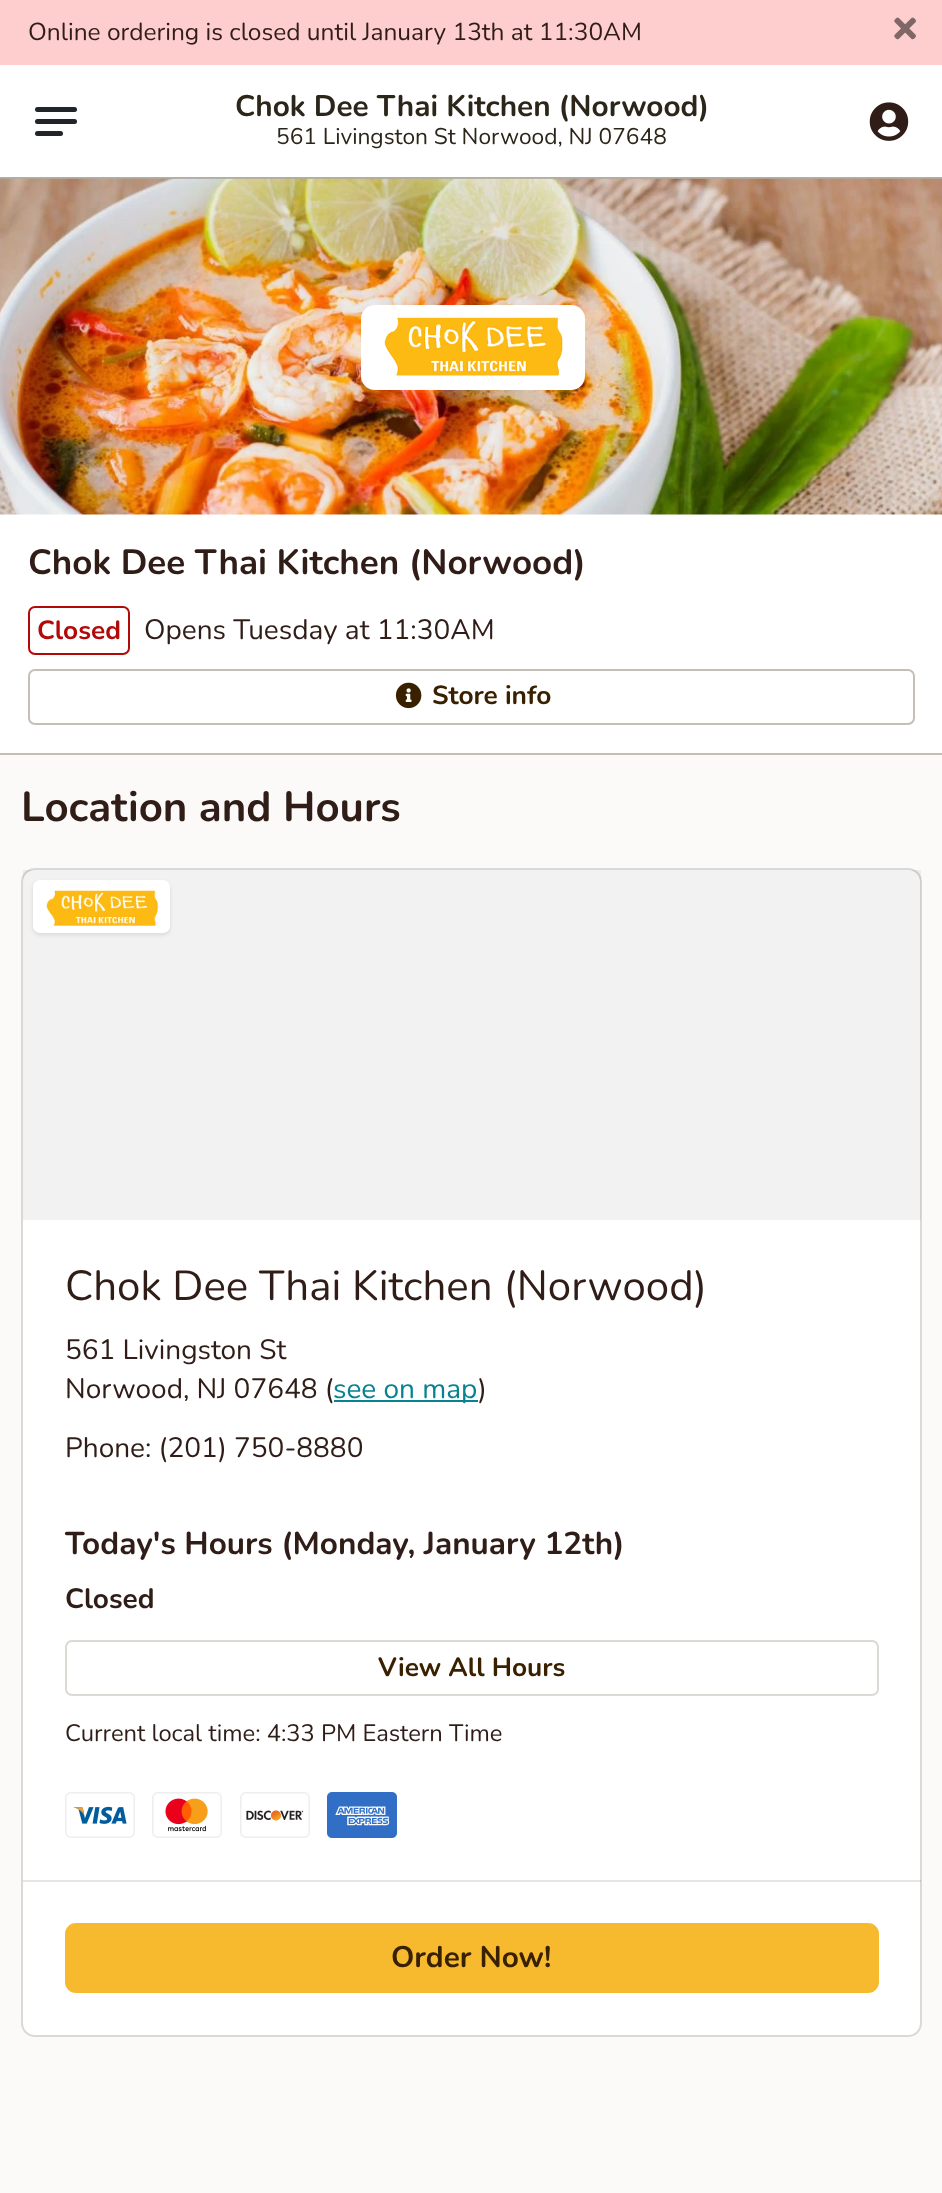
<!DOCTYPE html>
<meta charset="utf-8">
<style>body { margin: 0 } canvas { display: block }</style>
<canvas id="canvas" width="942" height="2193"></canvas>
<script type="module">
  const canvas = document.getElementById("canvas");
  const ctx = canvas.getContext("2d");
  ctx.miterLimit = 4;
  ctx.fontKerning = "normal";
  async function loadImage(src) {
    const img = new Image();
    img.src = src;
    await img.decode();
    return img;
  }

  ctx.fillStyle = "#fbfaf9";
  ctx.fillRect(0, 0, 942, 2193);
  ctx.fillStyle = "#c2beb4";
  ctx.fillRect(0, 754, 942, 1);
  ctx.fillStyle = "#fecece";
  ctx.fillRect(0, 0, 942, 65);
  ctx.font = "24.5px Nunito";
  ctx.fillStyle = "#301d17";
  ctx.fillText("Online ordering is closed until January 13th at 11:30AM", 28, 40);
  ctx.drawImage(await loadImage("img1.png"), 894, 17, 22, 23);
  ctx.fillStyle = "#c4c0b7";
  ctx.fillRect(0, 177, 942, 2);
  ctx.fillStyle = "#ffffff";
  ctx.fillRect(0, 514, 942, 239);
  ctx.drawImage(await loadImage("img3.png"), 0, 178, 942, 337);
  ctx.fillStyle = "rgba(148, 141, 124, 0.35)";
  ctx.fillRect(0, 177, 942, 2);
  ctx.fillStyle = "#ffffff";
  ctx.fillRect(0, 65, 942, 112);
  ctx.fillStyle = "#212529";
  ctx.beginPath();
  ctx.roundRect(35, 107, 42, 5, 2.5);
  ctx.fill();
  ctx.beginPath();
  ctx.roundRect(35, 119, 42, 5, 2.5);
  ctx.fill();
  ctx.beginPath();
  ctx.roundRect(35, 131, 28, 5, 2.5);
  ctx.fill();
  ctx.font = "bold 29.75px Nunito";
  ctx.fillStyle = "#2c261a";
  ctx.fillText("Chok Dee Thai Kitchen (Norwood)", 235, 116);
  ctx.font = "22.75px Nunito";
  ctx.fillText("561 Livingston St Norwood, NJ 07648", 276, 144);
  ctx.drawImage(await loadImage("img2.png"), 869, 102, 40, 39);
  ctx.fillStyle = "#c4c0b7";
  ctx.fillRect(0, 753, 942, 1);
  ctx.fillStyle = "#ffffff";
  ctx.beginPath();
  ctx.roundRect(361, 305, 224, 85, 14);
  ctx.fill();
  ctx.drawImage(await loadImage("img4.png"), 384, 317, 179, 59);
  ctx.font = "bold 35px Nunito";
  ctx.fillStyle = "#301d17";
  ctx.fillText("Chok Dee Thai Kitchen (Norwood)", 28, 574);
  ctx.beginPath();
  ctx.roundRect(29, 607, 100, 47, 6);
  ctx.strokeStyle = "#b30909";
  ctx.lineWidth = 2;
  ctx.stroke();
  ctx.font = "bold 26.25px Nunito";
  ctx.fillStyle = "#b30909";
  ctx.fillText("Closed", 37, 639);
  ctx.font = "28px Nunito";
  ctx.fillStyle = "#301d17";
  ctx.fillText("Opens Tuesday at 11:30AM", 144, 639);
  ctx.beginPath();
  ctx.roundRect(29, 670, 885, 54, 6);
  ctx.strokeStyle = "#c4c0b7";
  ctx.stroke();
  ctx.drawImage(await loadImage("img5.png"), 395, 682, 27, 27);
  ctx.font = "bold 26.25px Nunito";
  ctx.fillStyle = "#392100";
  ctx.fillText("Store info", 432, 704);
  ctx.font = "bold 42px Nunito";
  ctx.fillStyle = "#301d17";
  ctx.fillText("Location and Hours", 21, 821);
  ctx.fillStyle = "#ffffff";
  ctx.beginPath();
  ctx.roundRect(22, 869, 899, 1167, 13);
  ctx.fill();
  ctx.strokeStyle = "#d9d9d9";
  ctx.stroke();
  ctx.fillStyle = "rgba(0, 0, 0, 0.05)";
  ctx.fillRect(23, 870, 898, 350);
  ctx.fillStyle = "rgba(0, 0, 0, 0.1)";
  ctx.filter = "blur(2px)";
  ctx.beginPath();
  ctx.roundRect(33, 882, 137, 53, 7);
  ctx.fill();
  ctx.filter = "none";
  ctx.fillStyle = "#ffffff";
  ctx.beginPath();
  ctx.roundRect(33, 880, 137, 53, 7);
  ctx.fill();
  ctx.drawImage(await loadImage("img6.png"), 46, 890, 112, 36);
  ctx.font = "42px Nunito";
  ctx.fillStyle = "#301d17";
  ctx.fillText("Chok Dee Thai Kitchen (Norwood)", 65, 1300);
  ctx.font = "28px Nunito";
  ctx.fillText("561 Livingston St", 65, 1359);
  ctx.fillText("Norwood, NJ 07648 (", 65, 1398);
  ctx.fillStyle = "#078291";
  ctx.fillRect(334, 1400, 144, 2);
  ctx.fillText("see on map", 333, 1398);
  ctx.fillStyle = "#301d17";
  ctx.fillText(")", 478, 1398);
  ctx.fillText("Phone: (201) 750-8880", 65, 1457);
  ctx.font = "bold 31.5px Nunito";
  ctx.fillText("Today's Hours (Monday, January 12th)", 65, 1554);
  ctx.font = "bold 28px Nunito";
  ctx.fillText("Closed", 65, 1608);
  ctx.beginPath();
  ctx.roundRect(66, 1641, 812, 54, 6);
  ctx.strokeStyle = "#dcd9d4";
  ctx.stroke();
  ctx.font = "bold 26.25px Nunito";
  ctx.fillStyle = "#392100";
  ctx.fillText("View All Hours", 378, 1676);
  ctx.font = "23.75px Nunito";
  ctx.fillStyle = "#301d17";
  ctx.fillText("Current local time: 4:33 PM Eastern Time", 65, 1741);
  ctx.drawImage(await loadImage("img7.png"), 65, 1792, 70, 46);
  ctx.drawImage(await loadImage("img8.png"), 152, 1792, 70, 46);
  ctx.drawImage(await loadImage("img9.png"), 240, 1792, 70, 46);
  ctx.drawImage(await loadImage("img10.png"), 327, 1792, 70, 46);
  ctx.fillStyle = "rgba(0, 0, 0, 0.1)";
  ctx.fillRect(23, 1880, 898, 2);
  ctx.fillStyle = "#f7b92e";
  ctx.beginPath();
  ctx.roundRect(66, 1924, 812, 68, 10);
  ctx.fill();
  ctx.strokeStyle = "#f7b92e";
  ctx.stroke();
  ctx.font = "bold 29.75px Nunito";
  ctx.fillStyle = "#392100";
  ctx.fillText("Order Now!", 391, 1967);
</script>
